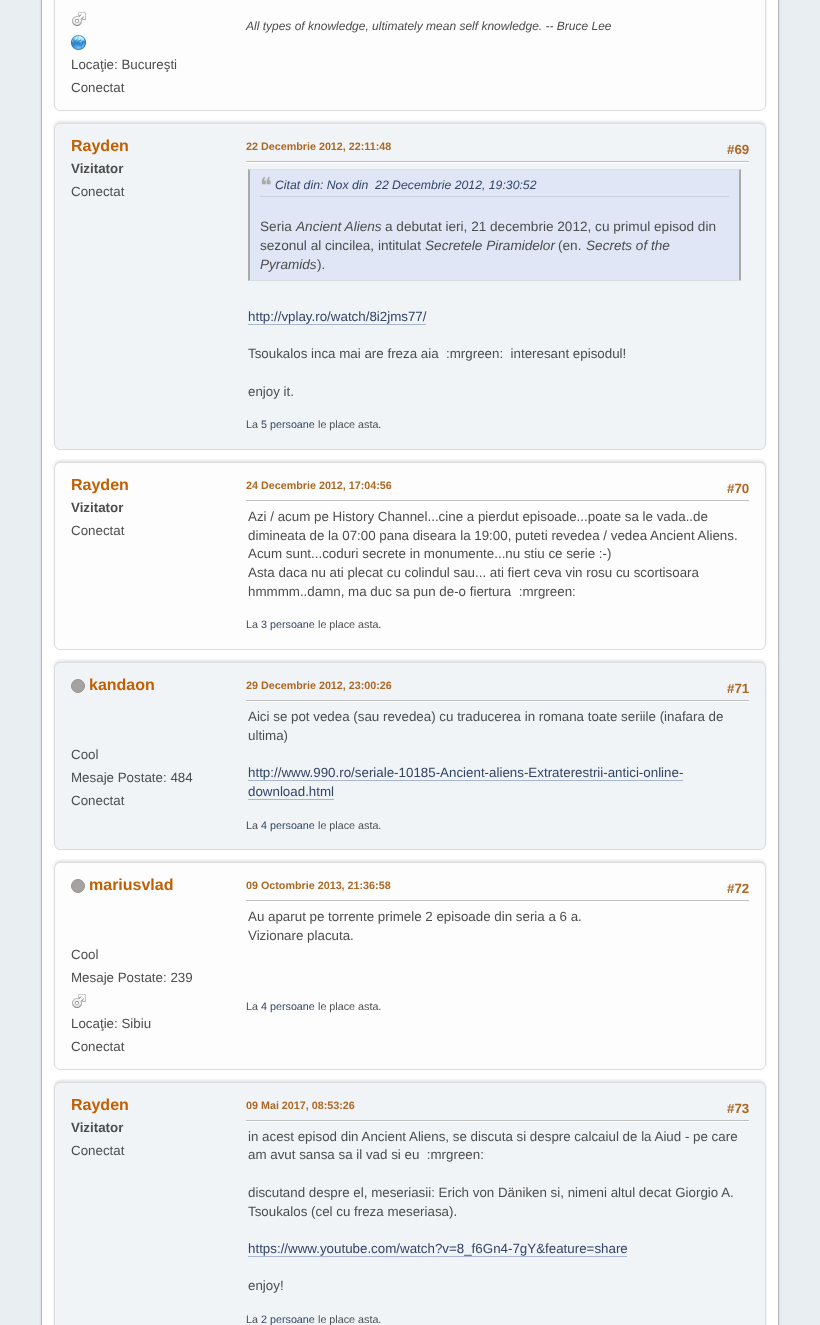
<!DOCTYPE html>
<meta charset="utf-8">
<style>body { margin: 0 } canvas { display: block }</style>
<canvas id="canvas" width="820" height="1325"></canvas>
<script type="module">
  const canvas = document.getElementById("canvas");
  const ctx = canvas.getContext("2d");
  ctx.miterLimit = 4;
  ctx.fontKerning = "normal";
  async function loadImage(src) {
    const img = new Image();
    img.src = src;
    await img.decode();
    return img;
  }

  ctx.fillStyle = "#e9eef2";
  ctx.fillRect(0, 0, 820, 1325);
  ctx.fillStyle = "rgba(0, 0, 0, 0.14)";
  ctx.filter = "blur(1.5px)";
  ctx.beginPath();
  ctx.roundRect(41, -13, 738, 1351, 8);
  ctx.fill();
  ctx.filter = "none";
  ctx.fillStyle = "#ffffff";
  ctx.beginPath();
  ctx.rect(41.5, -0.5, 737, 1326);
  ctx.fill();
  ctx.strokeStyle = "#b8b8b8";
  ctx.stroke();
  ctx.fillStyle = "rgba(0, 0, 0, 0.1)";
  ctx.filter = "blur(1px)";
  ctx.beginPath();
  ctx.roundRect(54, -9, 712, 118, 6);
  ctx.fill();
  ctx.filter = "none";
  ctx.fillStyle = "#fdfdfd";
  ctx.beginPath();
  ctx.roundRect(54.5, -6.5, 711, 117, 5.5);
  ctx.fill();
  ctx.strokeStyle = "#dddddd";
  ctx.stroke();
  ctx.font = "italic 12px Liberation Sans";
  ctx.fillStyle = "#4d4d4d";
  ctx.fillText("All types of knowledge, ultimately mean self knowledge. -- Bruce Lee", 246, 30);
  ctx.drawImage(await loadImage("img1.png"), 72, 12, 14, 14);
  ctx.drawImage(await loadImage("img2.png"), 71, 35, 15, 15);
  ctx.font = "13.35px Liberation Sans";
  ctx.fillText("Locaţie: Bucureşti", 71, 69);
  ctx.fillText("Conectat", 71, 92);
  ctx.fillStyle = "rgba(0, 0, 0, 0.1)";
  ctx.filter = "blur(1px)";
  ctx.beginPath();
  ctx.roundRect(54, 121, 712, 327, 6);
  ctx.fill();
  ctx.filter = "none";
  ctx.fillStyle = "#f0f4f7";
  ctx.beginPath();
  ctx.roundRect(54.5, 123.5, 711, 326, 5.5);
  ctx.fill();
  ctx.stroke();
  ctx.font = "bold 16px Liberation Sans";
  ctx.fillStyle = "#c06002";
  ctx.fillText("Rayden", 71, 151);
  ctx.font = "bold 13.35px Liberation Sans";
  ctx.fillStyle = "#4d4d4d";
  ctx.fillText("Vizitator", 71, 173);
  ctx.font = "13.35px Liberation Sans";
  ctx.fillText("Conectat", 71, 196);
  ctx.font = "bold 10.75px Liberation Sans";
  ctx.fillStyle = "#ad6825";
  ctx.fillText("22 Decembrie 2012, 22:11:48", 246, 150);
  ctx.font = "bold 13.35px Liberation Sans";
  ctx.fillText("#69", 727, 154);
  ctx.fillStyle = "#ffffff";
  ctx.fillRect(246, 162, 503, 1);
  ctx.fillStyle = "#bfbfbf";
  ctx.fillRect(246, 161, 503, 1);
  ctx.fillStyle = "#e0e6f6";
  ctx.fillRect(250, 170, 489, 110);
  ctx.fillStyle = "#d6dfe2";
  ctx.beginPath();
  ctx.moveTo(248, 169);
  ctx.lineTo(741, 169);
  ctx.lineTo(739, 170);
  ctx.lineTo(250, 170);
  ctx.closePath();
  ctx.fill();
  ctx.fillStyle = "#aaaaaa";
  ctx.beginPath();
  ctx.moveTo(741, 169);
  ctx.lineTo(741, 281);
  ctx.lineTo(739, 280);
  ctx.lineTo(739, 170);
  ctx.closePath();
  ctx.fill();
  ctx.fillStyle = "#d6dfe2";
  ctx.beginPath();
  ctx.moveTo(741, 281);
  ctx.lineTo(248, 281);
  ctx.lineTo(250, 280);
  ctx.lineTo(739, 280);
  ctx.closePath();
  ctx.fill();
  ctx.fillStyle = "#aaaaaa";
  ctx.beginPath();
  ctx.moveTo(248, 281);
  ctx.lineTo(248, 169);
  ctx.lineTo(250, 170);
  ctx.lineTo(250, 280);
  ctx.closePath();
  ctx.fill();
  ctx.fillStyle = "#cacfdd";
  ctx.fillRect(260, 196, 469, 1);
  ctx.font = "22px DejaVu Sans";
  ctx.fillStyle = "#aaaaaa";
  ctx.fillText("❝", 260, 193);
  ctx.font = "italic 12.25px Liberation Sans";
  ctx.fillStyle = "#334466";
  ctx.fillText("Citat din: Nox din  22 Decembrie 2012, 19:30:52", 275, 189);
  ctx.font = "13.6px Liberation Sans";
  ctx.fillStyle = "#4d4d4d";
  ctx.fillText("Seria", 260, 231);
  ctx.font = "italic 13.6px Liberation Sans";
  ctx.fillText("Ancient Aliens", 296, 231);
  ctx.font = "13.6px Liberation Sans";
  ctx.fillText("a debutat ieri, 21 decembrie 2012, cu primul episod din", 385, 231);
  ctx.fillText("sezonul al cincilea, intitulat", 260, 250);
  ctx.font = "italic 13.6px Liberation Sans";
  ctx.fillText("Secretele Piramidelor", 425, 250);
  ctx.font = "13.6px Liberation Sans";
  ctx.fillText("(en.", 558, 250);
  ctx.font = "italic 13.6px Liberation Sans";
  ctx.fillText("Secrets of the", 586, 250);
  ctx.fillText("Pyramids", 260, 269);
  ctx.font = "13.6px Liberation Sans";
  ctx.fillText(").", 317, 269);
  ctx.font = "13.35px Liberation Sans";
  ctx.fillStyle = "#334466";
  ctx.fillText("http://vplay.ro/watch/8i2jms77/", 248, 321);
  ctx.fillStyle = "#a8b6cf";
  ctx.fillRect(248, 324, 178, 1);
  ctx.fillStyle = "#4d4d4d";
  ctx.fillText("Tsoukalos inca mai are freza aia  :mrgreen:  interesant episodul!", 248, 358);
  ctx.fillText("enjoy it.", 248, 396);
  ctx.font = "10.75px Liberation Sans";
  ctx.fillText("La", 246, 428);
  ctx.fillStyle = "#334466";
  ctx.fillText("5 persoane", 261, 428);
  ctx.fillStyle = "#4d4d4d";
  ctx.fillText("le place asta.", 318, 428);
  ctx.fillStyle = "rgba(0, 0, 0, 0.1)";
  ctx.filter = "blur(1px)";
  ctx.beginPath();
  ctx.roundRect(54, 460, 712, 188, 6);
  ctx.fill();
  ctx.filter = "none";
  ctx.fillStyle = "#fdfdfd";
  ctx.beginPath();
  ctx.roundRect(54.5, 462.5, 711, 187, 5.5);
  ctx.fill();
  ctx.stroke();
  ctx.font = "bold 16px Liberation Sans";
  ctx.fillStyle = "#c06002";
  ctx.fillText("Rayden", 71, 490);
  ctx.font = "bold 13.35px Liberation Sans";
  ctx.fillStyle = "#4d4d4d";
  ctx.fillText("Vizitator", 71, 512);
  ctx.font = "13.35px Liberation Sans";
  ctx.fillText("Conectat", 71, 535);
  ctx.font = "bold 10.75px Liberation Sans";
  ctx.fillStyle = "#ad6825";
  ctx.fillText("24 Decembrie 2012, 17:04:56", 246, 489);
  ctx.font = "bold 13.35px Liberation Sans";
  ctx.fillText("#70", 727, 493);
  ctx.fillStyle = "#bfbfbf";
  ctx.fillRect(246, 500, 503, 1);
  ctx.font = "13.35px Liberation Sans";
  ctx.fillStyle = "#4d4d4d";
  ctx.fillText("Azi / acum pe History Channel...cine a pierdut episoade...poate sa le vada..de", 248, 521);
  ctx.fillText("dimineata de la 07:00 pana diseara la 19:00, puteti revedea / vedea Ancient Aliens.", 248, 540);
  ctx.fillText("Acum sunt...coduri secrete in monumente...nu stiu ce serie :-)", 248, 558);
  ctx.fillText("Asta daca nu ati plecat cu colindul sau... ati fiert ceva vin rosu cu scortisoara", 248, 577);
  ctx.fillText("hmmmm..damn, ma duc sa pun de-o fiertura  :mrgreen:", 248, 596);
  ctx.font = "10.75px Liberation Sans";
  ctx.fillText("La", 246, 628);
  ctx.fillStyle = "#334466";
  ctx.fillText("3 persoane", 261, 628);
  ctx.fillStyle = "#4d4d4d";
  ctx.fillText("le place asta.", 318, 628);
  ctx.fillStyle = "rgba(0, 0, 0, 0.1)";
  ctx.filter = "blur(1px)";
  ctx.beginPath();
  ctx.roundRect(54, 660, 712, 188, 6);
  ctx.fill();
  ctx.filter = "none";
  ctx.fillStyle = "#f0f4f7";
  ctx.beginPath();
  ctx.roundRect(54.5, 662.5, 711, 187, 5.5);
  ctx.fill();
  ctx.stroke();
  ctx.fillStyle = "#a7a2a2";
  ctx.beginPath();
  ctx.arc(78, 686, 6.5, 0, Math.PI * 2);
  ctx.fill();
  ctx.strokeStyle = "#969292";
  ctx.stroke();
  ctx.font = "bold 16px Liberation Sans";
  ctx.fillStyle = "#c06002";
  ctx.fillText("kandaon", 89, 690);
  ctx.font = "13.35px Liberation Sans";
  ctx.fillStyle = "#4d4d4d";
  ctx.fillText("Cool", 71, 759);
  ctx.fillText("Mesaje Postate: 484", 71, 782);
  ctx.fillText("Conectat", 71, 805);
  ctx.font = "bold 10.75px Liberation Sans";
  ctx.fillStyle = "#ad6825";
  ctx.fillText("29 Decembrie 2012, 23:00:26", 246, 689);
  ctx.font = "bold 13.35px Liberation Sans";
  ctx.fillText("#71", 727, 693);
  ctx.fillStyle = "#ffffff";
  ctx.fillRect(246, 701, 503, 1);
  ctx.fillStyle = "#bfbfbf";
  ctx.fillRect(246, 700, 503, 1);
  ctx.font = "13.35px Liberation Sans";
  ctx.fillStyle = "#4d4d4d";
  ctx.fillText("Aici se pot vedea (sau revedea) cu traducerea in romana toate seriile (inafara de", 248, 721);
  ctx.fillText("ultima)", 248, 740);
  ctx.fillStyle = "#334466";
  ctx.fillText("http://www.990.ro/seriale-10185-Ancient-aliens-Extraterestrii-antici-online-", 248, 777);
  ctx.fillStyle = "#a8b6cf";
  ctx.fillRect(248, 780, 435, 1);
  ctx.fillStyle = "#334466";
  ctx.fillText("download.html", 248, 796);
  ctx.fillStyle = "#a8b6cf";
  ctx.fillRect(248, 799, 86, 1);
  ctx.font = "10.75px Liberation Sans";
  ctx.fillStyle = "#4d4d4d";
  ctx.fillText("La", 246, 829);
  ctx.fillStyle = "#334466";
  ctx.fillText("4 persoane", 261, 829);
  ctx.fillStyle = "#4d4d4d";
  ctx.fillText("le place asta.", 318, 829);
  ctx.fillStyle = "rgba(0, 0, 0, 0.1)";
  ctx.filter = "blur(1px)";
  ctx.beginPath();
  ctx.roundRect(54, 860, 712, 208, 6);
  ctx.fill();
  ctx.filter = "none";
  ctx.fillStyle = "#fdfdfd";
  ctx.beginPath();
  ctx.roundRect(54.5, 862.5, 711, 207, 5.5);
  ctx.fill();
  ctx.strokeStyle = "#dddddd";
  ctx.stroke();
  ctx.fillStyle = "#a7a2a2";
  ctx.beginPath();
  ctx.arc(78, 886, 6.5, 0, Math.PI * 2);
  ctx.fill();
  ctx.strokeStyle = "#969292";
  ctx.stroke();
  ctx.font = "bold 16px Liberation Sans";
  ctx.fillStyle = "#c06002";
  ctx.fillText("mariusvlad", 89, 890);
  ctx.font = "13.35px Liberation Sans";
  ctx.fillStyle = "#4d4d4d";
  ctx.fillText("Cool", 71, 959);
  ctx.fillText("Mesaje Postate: 239", 71, 982);
  ctx.drawImage(await loadImage("img1.png"), 72, 994, 14, 14);
  ctx.fillText("Locaţie: Sibiu", 71, 1028);
  ctx.fillText("Conectat", 71, 1051);
  ctx.font = "bold 10.75px Liberation Sans";
  ctx.fillStyle = "#ad6825";
  ctx.fillText("09 Octombrie 2013, 21:36:58", 246, 889);
  ctx.font = "bold 13.35px Liberation Sans";
  ctx.fillText("#72", 727, 893);
  ctx.fillStyle = "#bfbfbf";
  ctx.fillRect(246, 900, 503, 1);
  ctx.font = "13.35px Liberation Sans";
  ctx.fillStyle = "#4d4d4d";
  ctx.fillText("Au aparut pe torrente primele 2 episoade din seria a 6 a.", 248, 921);
  ctx.fillText("Vizionare placuta.", 248, 940);
  ctx.font = "10.75px Liberation Sans";
  ctx.fillText("La", 246, 1010);
  ctx.fillStyle = "#334466";
  ctx.fillText("4 persoane", 261, 1010);
  ctx.fillStyle = "#4d4d4d";
  ctx.fillText("le place asta.", 318, 1010);
  ctx.fillStyle = "rgba(0, 0, 0, 0.1)";
  ctx.filter = "blur(1px)";
  ctx.beginPath();
  ctx.roundRect(54, 1080, 712, 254, 6);
  ctx.fill();
  ctx.filter = "none";
  ctx.fillStyle = "#f0f4f7";
  ctx.beginPath();
  ctx.roundRect(54.5, 1082.5, 711, 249, 5.5);
  ctx.fill();
  ctx.strokeStyle = "#dddddd";
  ctx.stroke();
  ctx.font = "bold 16px Liberation Sans";
  ctx.fillStyle = "#c06002";
  ctx.fillText("Rayden", 71, 1110);
  ctx.font = "bold 13.35px Liberation Sans";
  ctx.fillStyle = "#4d4d4d";
  ctx.fillText("Vizitator", 71, 1132);
  ctx.font = "13.35px Liberation Sans";
  ctx.fillText("Conectat", 71, 1155);
  ctx.font = "bold 10.75px Liberation Sans";
  ctx.fillStyle = "#ad6825";
  ctx.fillText("09 Mai 2017, 08:53:26", 246, 1109);
  ctx.font = "bold 13.35px Liberation Sans";
  ctx.fillText("#73", 727, 1113);
  ctx.fillStyle = "#ffffff";
  ctx.fillRect(246, 1121, 503, 1);
  ctx.fillStyle = "#bfbfbf";
  ctx.fillRect(246, 1120, 503, 1);
  ctx.font = "13.35px Liberation Sans";
  ctx.fillStyle = "#4d4d4d";
  ctx.fillText("in acest episod din Ancient Aliens, se discuta si despre calcaiul de la Aiud - pe care", 248, 1141);
  ctx.fillText("am avut sansa sa il vad si eu  :mrgreen:", 248, 1159);
  ctx.fillText("discutand despre el, meseriasii: Erich von Däniken si, nimeni altul decat Giorgio A.", 248, 1197);
  ctx.fillText("Tsoukalos (cel cu freza meseriasa).", 248, 1216);
  ctx.fillStyle = "#334466";
  ctx.fillText("https://www.youtube.com/watch?v=8_f6Gn4-7gY&feature=share", 248, 1253);
  ctx.fillStyle = "#a8b6cf";
  ctx.fillRect(248, 1256, 379, 1);
  ctx.fillStyle = "#4d4d4d";
  ctx.fillText("enjoy!", 248, 1290);
  ctx.font = "10.75px Liberation Sans";
  ctx.fillText("La", 246, 1323);
  ctx.fillStyle = "#334466";
  ctx.fillText("2 persoane", 261, 1323);
  ctx.fillStyle = "#4d4d4d";
  ctx.fillText("le place asta.", 318, 1323);
</script>
